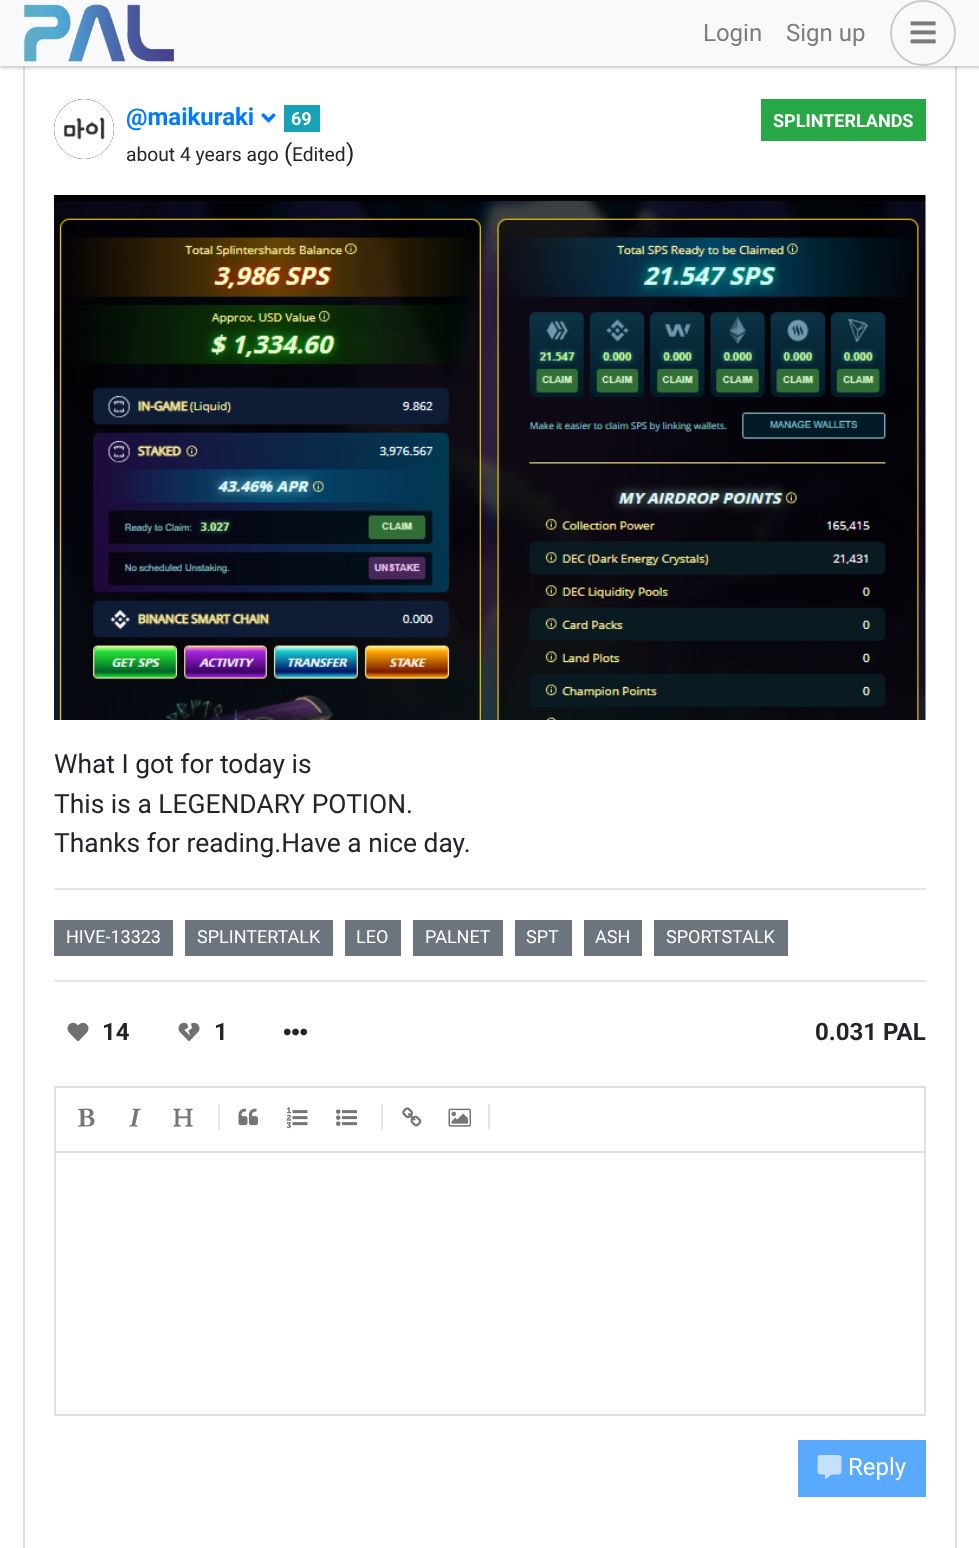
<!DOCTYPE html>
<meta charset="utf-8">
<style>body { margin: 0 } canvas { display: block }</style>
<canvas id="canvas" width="979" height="1548"></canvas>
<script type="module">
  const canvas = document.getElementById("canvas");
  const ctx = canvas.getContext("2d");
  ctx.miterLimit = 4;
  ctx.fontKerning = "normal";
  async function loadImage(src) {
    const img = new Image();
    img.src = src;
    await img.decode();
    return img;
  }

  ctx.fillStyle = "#ffffff";
  ctx.fillRect(0, 0, 979, 1548);
  ctx.strokeStyle = "#dfdfdf";
  ctx.lineWidth = 2;
  ctx.strokeRect(24, -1, 932, 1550);
  ctx.fillStyle = "rgba(0, 0, 0, 0.14)";
  ctx.filter = "blur(1.5px)";
  ctx.beginPath();
  ctx.rect(0, 2, 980, 66);
  ctx.fill();
  ctx.filter = "none";
  ctx.fillStyle = "rgba(0, 0, 0, 0.07)";
  ctx.filter = "blur(2px)";
  ctx.beginPath();
  ctx.rect(0, 2, 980, 66);
  ctx.fill();
  ctx.filter = "none";
  ctx.fillStyle = "#f8f9fa";
  ctx.fillRect(0, 0, 979, 66);
  ctx.drawImage(await loadImage("img1.png"), 24, 4, 150, 58);
  ctx.font = "24px Roboto";
  ctx.fillStyle = "#7c7d7d";
  ctx.fillText("Login", 703, 41);
  ctx.fillText("Sign up", 786, 41);
  ctx.beginPath();
  ctx.arc(923, 33, 32, 0, Math.PI * 2);
  ctx.strokeStyle = "#cacaca";
  ctx.stroke();
  ctx.drawImage(await loadImage("img2.png"), 910, 21, 26, 23);
  ctx.fillStyle = "#343a40";
  ctx.beginPath();
  ctx.arc(84, 129, 30, 0, Math.PI * 2);
  ctx.fill();
  ctx.drawImage(await loadImage("img3.png"), 54, 99, 60, 60);
  ctx.font = "bold 24px Roboto";
  ctx.fillStyle = "#007bff";
  ctx.fillText("@maikuraki", 126, 125);
  ctx.drawImage(await loadImage("img4.png"), 261, 113, 15, 10);
  ctx.fillStyle = "#17a2b8";
  ctx.fillRect(284, 105, 36, 27);
  ctx.font = "bold 18px Roboto";
  ctx.fillStyle = "#ffffff";
  ctx.fillText("69", 291, 125);
  ctx.font = "19.25px Roboto";
  ctx.fillStyle = "#212529";
  ctx.fillText("about 4 years ago", 126, 161);
  ctx.font = "24px Roboto";
  ctx.fillText("(", 284, 161);
  ctx.font = "19.25px Roboto";
  ctx.fillText("Edited", 292, 161);
  ctx.font = "24px Roboto";
  ctx.fillText(")", 346, 161);
  ctx.fillStyle = "#28a745";
  ctx.fillRect(761, 99, 165, 42);
  ctx.font = "bold 18px Roboto";
  ctx.fillStyle = "#ffffff";
  ctx.fillText("SPLINTERLANDS", 773, 127);
  ctx.drawImage(await loadImage("img5.png"), 54, 195, 872, 525);
  ctx.font = "26.4px Roboto";
  ctx.fillStyle = "#212529";
  ctx.fillText("What I got for today is", 54, 773);
  ctx.fillText("This is a LEGENDARY POTION.", 54, 813);
  ctx.fillText("Thanks for reading.Have a nice day.", 54, 852);
  ctx.fillStyle = "#e6e6e6";
  ctx.fillRect(54, 888, 872, 2);
  ctx.fillStyle = "#6c757d";
  ctx.fillRect(54, 920, 119, 36);
  ctx.font = "18px Roboto";
  ctx.fillStyle = "#ffffff";
  ctx.fillText("HIVE-13323", 66, 943);
  ctx.fillStyle = "#6c757d";
  ctx.fillRect(185, 920, 148, 36);
  ctx.fillStyle = "#ffffff";
  ctx.fillText("SPLINTERTALK", 197, 943);
  ctx.fillStyle = "#6c757d";
  ctx.fillRect(345, 920, 56, 36);
  ctx.fillStyle = "#ffffff";
  ctx.fillText("LEO", 356, 943);
  ctx.fillStyle = "#6c757d";
  ctx.fillRect(413, 920, 90, 36);
  ctx.fillStyle = "#ffffff";
  ctx.fillText("PALNET", 425, 943);
  ctx.fillStyle = "#6c757d";
  ctx.fillRect(515, 920, 57, 36);
  ctx.fillStyle = "#ffffff";
  ctx.fillText("SPT", 526, 943);
  ctx.fillStyle = "#6c757d";
  ctx.fillRect(584, 920, 58, 36);
  ctx.fillStyle = "#ffffff";
  ctx.fillText("ASH", 595, 943);
  ctx.fillStyle = "#6c757d";
  ctx.fillRect(654, 920, 134, 36);
  ctx.fillStyle = "#ffffff";
  ctx.fillText("SPORTSTALK", 666, 943);
  ctx.fillStyle = "#e6e6e6";
  ctx.fillRect(54, 980, 872, 2);
  ctx.drawImage(await loadImage("img6.png"), 67, 1022, 22, 20);
  ctx.font = "bold 24px Roboto";
  ctx.fillStyle = "#212529";
  ctx.fillText("14", 102, 1040);
  ctx.drawImage(await loadImage("img7.png"), 178, 1022, 22, 20);
  ctx.fillText("1", 214, 1040);
  ctx.drawImage(await loadImage("img8.png"), 283, 1028, 25, 8);
  ctx.fillText("0.031 PAL", 815, 1040);
  ctx.strokeStyle = "#dee2e6";
  ctx.strokeRect(55, 1087, 870, 328);
  ctx.fillStyle = "#dee2e6";
  ctx.fillRect(56, 1151, 868, 2);
  ctx.drawImage(await loadImage("img9.png"), 78, 1108, 17, 19);
  ctx.drawImage(await loadImage("img10.png"), 129, 1108, 12, 19);
  ctx.drawImage(await loadImage("img11.png"), 173, 1108, 20, 19);
  ctx.fillStyle = "#e5e5e5";
  ctx.fillRect(218, 1104, 2, 26);
  ctx.drawImage(await loadImage("img12.png"), 238, 1108, 20, 18);
  ctx.drawImage(await loadImage("img13.png"), 286, 1107, 22, 22);
  ctx.drawImage(await loadImage("img14.png"), 336, 1109, 21, 17);
  ctx.fillRect(381, 1104, 2, 26);
  ctx.drawImage(await loadImage("img15.png"), 402, 1107, 20, 20);
  ctx.drawImage(await loadImage("img16.png"), 448, 1108, 23, 19);
  ctx.fillRect(488, 1104, 2, 26);
  ctx.fillStyle = "#59a9ff";
  ctx.fillRect(798, 1440, 128, 57);
  ctx.drawImage(await loadImage("img17.png"), 817, 1455, 25, 24);
  ctx.font = "24px Roboto";
  ctx.fillStyle = "#ffffff";
  ctx.fillText("Reply", 848, 1475);
</script>
